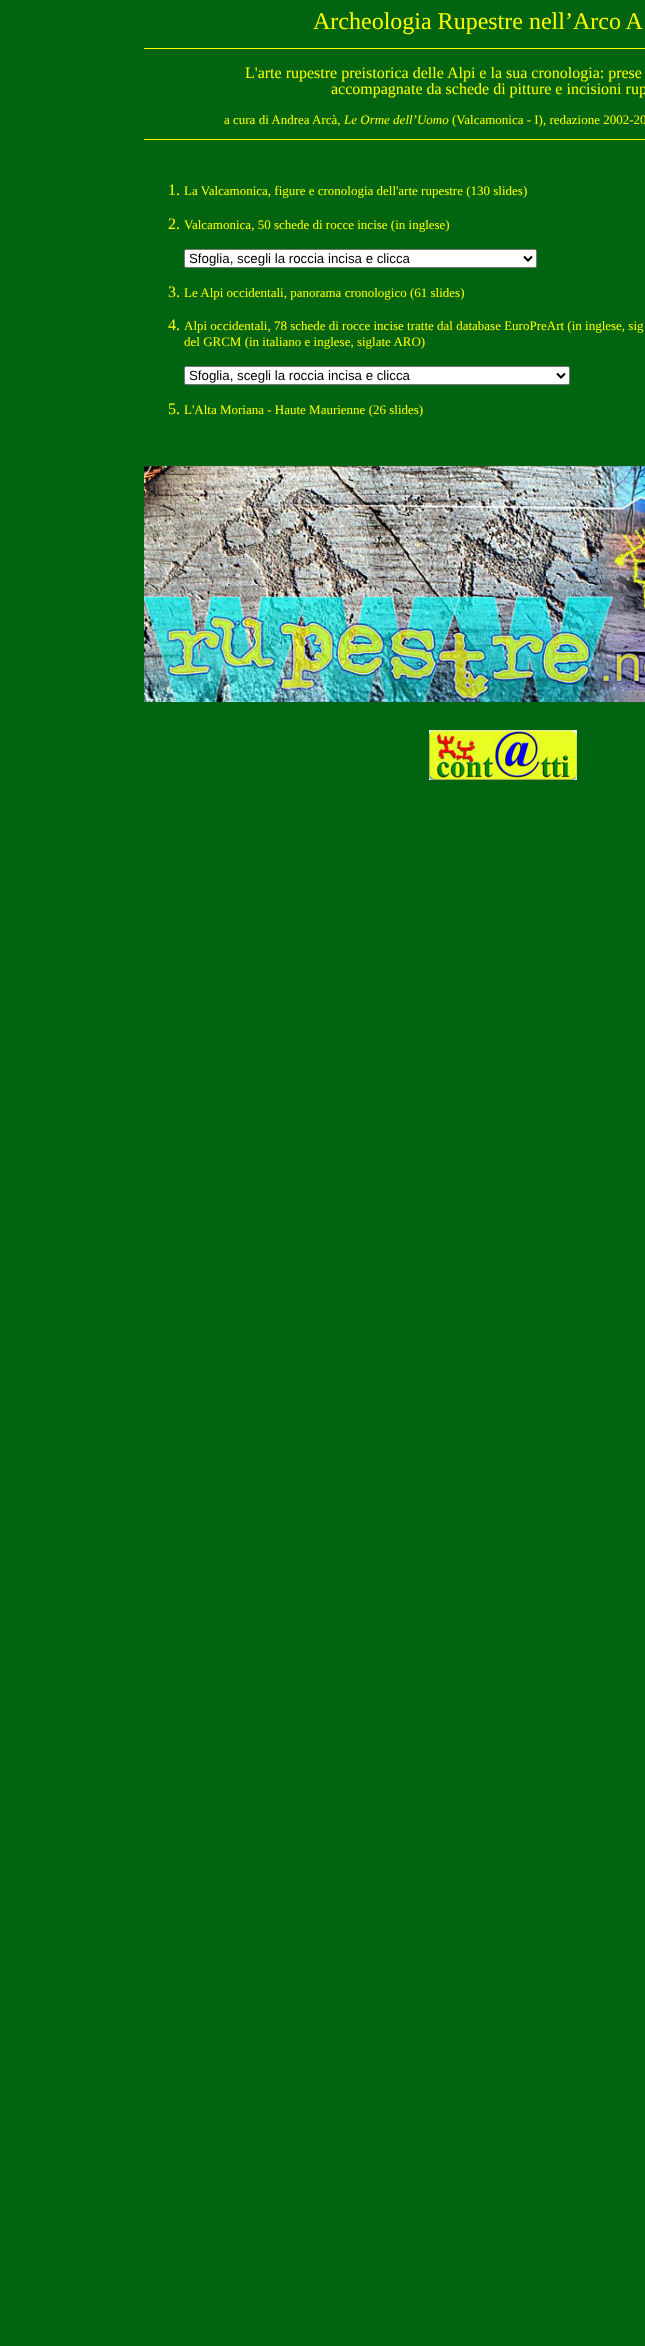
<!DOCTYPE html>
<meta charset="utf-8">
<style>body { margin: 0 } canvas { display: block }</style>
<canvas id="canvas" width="645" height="2346"></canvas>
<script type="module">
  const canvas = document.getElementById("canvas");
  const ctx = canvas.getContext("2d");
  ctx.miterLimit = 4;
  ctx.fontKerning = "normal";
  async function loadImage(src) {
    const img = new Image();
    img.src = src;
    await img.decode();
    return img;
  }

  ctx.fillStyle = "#006411";
  ctx.fillRect(0, 0, 645, 2346);
  ctx.font = "24px Liberation Serif";
  ctx.fillStyle = "#ffff00";
  ctx.fillText("Archeologia Rupestre nell’Arco A", 313, 29);
  ctx.fillRect(144, 48, 501, 1);
  ctx.font = "16px Liberation Serif";
  ctx.fillText("L'arte rupestre preistorica delle Alpi e la sua cronologia: prese", 245, 78);
  ctx.fillText("accompagnate da schede di pitture e incisioni rup", 331, 94);
  ctx.font = "13px Liberation Serif";
  ctx.fillText("a cura di Andrea Arcà,", 224, 124);
  ctx.font = "italic 13px Liberation Serif";
  ctx.fillText("Le Orme dell’Uomo", 344, 124);
  ctx.font = "13px Liberation Serif";
  ctx.fillText("(Valcamonica - I), redazione 2002-20", 452, 124);
  ctx.fillRect(144, 139, 501, 1);
  ctx.font = "16px Liberation Serif";
  ctx.fillText("1.", 168, 195);
  ctx.font = "13px Liberation Serif";
  ctx.fillText("La Valcamonica, figure e cronologia dell'arte rupestre (130 slides)", 184, 195);
  ctx.font = "16px Liberation Serif";
  ctx.fillText("2.", 168, 229);
  ctx.font = "13px Liberation Serif";
  ctx.fillText("Valcamonica, 50 schede di rocce incise (in inglese)", 184, 229);
  ctx.fillStyle = "#ffffff";
  ctx.beginPath();
  ctx.roundRect(184.5, 249.5, 352, 18, 1.5);
  ctx.fill();
  ctx.strokeStyle = "#767676";
  ctx.stroke();
  ctx.beginPath();
  ctx.moveTo(524, 256.5);
  ctx.lineTo(528, 260.5);
  ctx.lineTo(532, 256.5);
  ctx.strokeStyle = "#000000";
  ctx.lineWidth = 2;
  ctx.stroke();
  ctx.font = "13.3px Liberation Sans";
  ctx.fillStyle = "#000000";
  ctx.fillText("Sfoglia, scegli la roccia incisa e clicca", 189, 263);
  ctx.font = "16px Liberation Serif";
  ctx.fillStyle = "#ffff00";
  ctx.fillText("3.", 168, 297);
  ctx.font = "13px Liberation Serif";
  ctx.fillText("Le Alpi occidentali, panorama cronologico (61 slides)", 184, 297);
  ctx.font = "16px Liberation Serif";
  ctx.fillText("4.", 168, 330);
  ctx.font = "13px Liberation Serif";
  ctx.fillText("Alpi occidentali, 78 schede di rocce incise tratte dal database EuroPreArt (in inglese, sig", 184, 330);
  ctx.fillText("del GRCM (in italiano e inglese, siglate ARO)", 184, 346);
  ctx.fillStyle = "#ffffff";
  ctx.beginPath();
  ctx.roundRect(184.5, 366.5, 385, 18, 1.5);
  ctx.fill();
  ctx.strokeStyle = "#767676";
  ctx.lineWidth = 1;
  ctx.stroke();
  ctx.beginPath();
  ctx.moveTo(557, 373.5);
  ctx.lineTo(561, 377.5);
  ctx.lineTo(565, 373.5);
  ctx.strokeStyle = "#000000";
  ctx.lineWidth = 2;
  ctx.stroke();
  ctx.font = "13.3px Liberation Sans";
  ctx.fillStyle = "#000000";
  ctx.fillText("Sfoglia, scegli la roccia incisa e clicca", 189, 380);
  ctx.font = "16px Liberation Serif";
  ctx.fillStyle = "#ffff00";
  ctx.fillText("5.", 168, 414);
  ctx.font = "13px Liberation Serif";
  ctx.fillText("L'Alta Moriana - Haute Maurienne (26 slides)", 184, 414);
  ctx.drawImage(await loadImage("img1.png"), 144, 466, 501, 236);
  ctx.drawImage(await loadImage("img2.png"), 429, 730, 148, 50);
</script>
